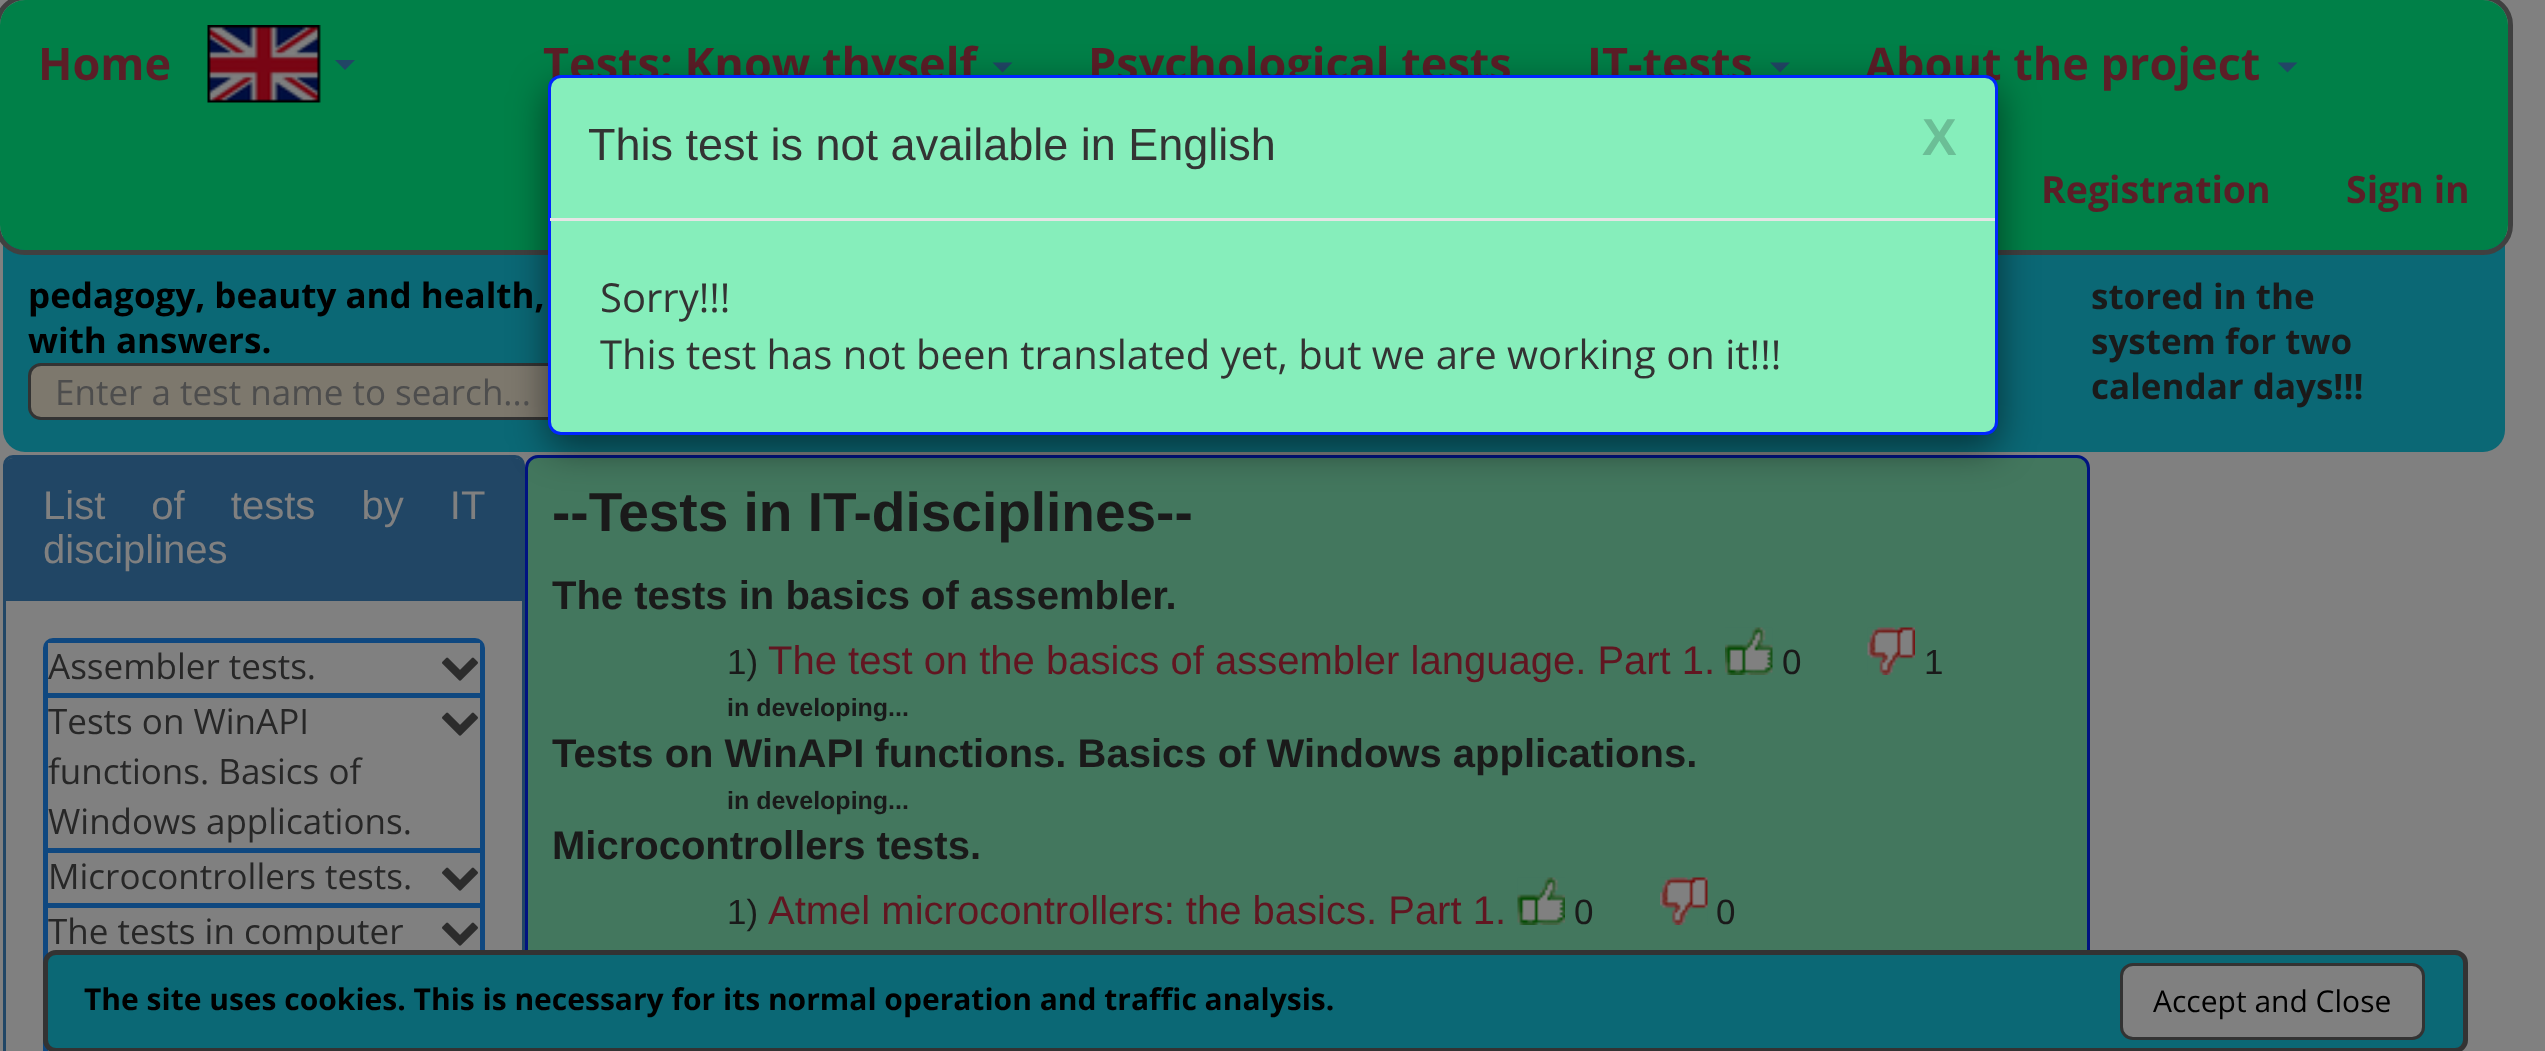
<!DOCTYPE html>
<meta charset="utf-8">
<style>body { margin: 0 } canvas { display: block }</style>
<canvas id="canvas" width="2545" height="1051"></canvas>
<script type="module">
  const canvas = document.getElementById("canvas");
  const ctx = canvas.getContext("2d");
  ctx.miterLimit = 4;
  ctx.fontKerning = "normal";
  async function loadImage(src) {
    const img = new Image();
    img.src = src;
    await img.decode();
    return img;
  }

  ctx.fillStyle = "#808080";
  ctx.fillRect(0, 0, 2545, 1051);
  ctx.fillStyle = "#0b6875";
  ctx.beginPath();
  ctx.roundRect(1.5, 126.5, 2505, 327, 23.5);
  ctx.fill();
  ctx.strokeStyle = "#808080";
  ctx.lineWidth = 3;
  ctx.stroke();
  ctx.beginPath();
  ctx.roundRect(-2.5, -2.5, 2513, 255, 27.5);
  ctx.strokeStyle = "#404040";
  ctx.lineWidth = 5;
  ctx.stroke();
  ctx.fillStyle = "#008048";
  ctx.beginPath();
  ctx.roundRect(0, 0, 2508, 250, 25);
  ctx.fill();
  ctx.font = "bold 45px Open Sans";
  ctx.fillStyle = "#5b1e27";
  ctx.fillText("Home", 38, 80);
  ctx.drawImage(await loadImage("img1.png"), 207, 25, 114, 78);
  ctx.fillStyle = "#214665";
  ctx.beginPath();
  ctx.moveTo(335, 60);
  ctx.lineTo(355, 60);
  ctx.lineTo(345, 70);
  ctx.closePath();
  ctx.fill();
  ctx.fillStyle = "#5b1e27";
  ctx.fillText("Tests: Know thyself", 543, 80);
  ctx.fillStyle = "#214665";
  ctx.beginPath();
  ctx.moveTo(992.5, 62.5);
  ctx.lineTo(1012.5, 62.5);
  ctx.lineTo(1002.5, 72.5);
  ctx.closePath();
  ctx.fill();
  ctx.fillStyle = "#5b1e27";
  ctx.fillText("Psychological tests", 1088, 80);
  ctx.fillText("IT-tests", 1587, 80);
  ctx.fillStyle = "#214665";
  ctx.beginPath();
  ctx.moveTo(1770, 62.5);
  ctx.lineTo(1790, 62.5);
  ctx.lineTo(1780, 72.5);
  ctx.closePath();
  ctx.fill();
  ctx.fillStyle = "#5b1e27";
  ctx.fillText("About the project", 1865, 80);
  ctx.fillStyle = "#214665";
  ctx.beginPath();
  ctx.moveTo(2277.5, 62.5);
  ctx.lineTo(2297.5, 62.5);
  ctx.lineTo(2287.5, 72.5);
  ctx.closePath();
  ctx.fill();
  ctx.font = "bold 37.5px Open Sans";
  ctx.fillStyle = "#5b1e27";
  ctx.fillText("Registration", 2041, 203);
  ctx.fillText("Sign in", 2346, 203);
  ctx.beginPath();
  ctx.roundRect(4.5, 456.5, 519, 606, 8.5);
  ctx.strokeStyle = "#214665";
  ctx.lineWidth = 3;
  ctx.stroke();
  ctx.fillStyle = "#214665";
  ctx.beginPath();
  ctx.roundRect(5, 458, 518, 142, [8, 8, 0, 0]);
  ctx.fill();
  ctx.fillRect(5, 600, 518, 1);
  ctx.wordSpacing = "35px";
  ctx.font = "40px Liberation Sans";
  ctx.fillStyle = "#808080";
  ctx.fillText("List of tests by IT", 43, 519);
  ctx.wordSpacing = "0px";
  ctx.fillText("disciplines", 43, 563);
  ctx.beginPath();
  ctx.roundRect(44.5, 639.5, 439, 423, 8.5);
  ctx.strokeStyle = "#0f4880";
  ctx.stroke();
  ctx.fillStyle = "#0f4880";
  ctx.fillRect(48, 641, 432, 2);
  ctx.fillRect(480, 643, 2, 307);
  ctx.fillRect(46, 643, 2, 408);
  ctx.fillRect(48, 693, 432, 5);
  ctx.font = "35px Open Sans";
  ctx.fillStyle = "#272727";
  ctx.fillText("Assembler tests.", 48, 679);
  ctx.drawImage(await loadImage("img2.png"), 442, 657, 36, 24);
  ctx.fillStyle = "#0f4880";
  ctx.fillRect(48, 848, 432, 5);
  ctx.fillStyle = "#272727";
  ctx.fillText("Tests on WinAPI", 48, 734);
  ctx.drawImage(await loadImage("img2.png"), 442, 712, 36, 24);
  ctx.fillText("functions. Basics of", 48, 784);
  ctx.fillText("Windows applications.", 48, 834);
  ctx.fillStyle = "#0f4880";
  ctx.fillRect(48, 903, 432, 5);
  ctx.fillStyle = "#272727";
  ctx.fillText("Microcontrollers tests.", 48, 889);
  ctx.drawImage(await loadImage("img2.png"), 442, 867, 36, 24);
  ctx.fillText("The tests in computer", 48, 944);
  ctx.drawImage(await loadImage("img2.png"), 442, 922, 36, 24);
  ctx.fillStyle = "#43775e";
  ctx.beginPath();
  ctx.roundRect(526.5, 456.5, 1562, 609, 11.5);
  ctx.fill();
  ctx.strokeStyle = "#001380";
  ctx.stroke();
  ctx.fillStyle = "#7d786d";
  ctx.beginPath();
  ctx.roundRect(29.5, 364.5, 752, 54, [11.5, 0, 0, 11.5]);
  ctx.fill();
  ctx.strokeStyle = "#333333";
  ctx.stroke();
  ctx.fillStyle = "rgba(0, 0, 0, 0.5)";
  ctx.filter = "blur(19px)";
  ctx.beginPath();
  ctx.roundRect(548, 88, 1450, 360, 13);
  ctx.fill();
  ctx.filter = "none";
  ctx.fillStyle = "#86eebb";
  ctx.beginPath();
  ctx.roundRect(549.5, 76.5, 1447, 357, 11.5);
  ctx.fill();
  ctx.strokeStyle = "#0026ff";
  ctx.stroke();
  ctx.fillStyle = "#e5e5e5";
  ctx.fillRect(550, 218, 1445, 3);
  ctx.font = "45px Liberation Sans";
  ctx.fillStyle = "#333333";
  ctx.fillText("This test is not available in English", 588, 160);
  ctx.font = "bold 52px Liberation Sans";
  ctx.fillStyle = "#6bbe96";
  ctx.fillText("X", 1922, 155);
  ctx.font = "40px Open Sans";
  ctx.fillStyle = "#333333";
  ctx.fillText("Sorry!!!", 600, 312);
  ctx.fillText("This test has not been translated yet, but we are working on it!!!", 600, 369);
  ctx.font = "bold 55px Liberation Sans";
  ctx.fillStyle = "#1a1a1a";
  ctx.fillText("--Tests in IT-disciplines--", 552, 531);
  ctx.font = "bold 40px Liberation Sans";
  ctx.fillText("The tests in basics of assembler.", 552, 609);
  ctx.font = "35px Liberation Sans";
  ctx.fillText("1)", 727, 674);
  ctx.font = "40px Liberation Sans";
  ctx.fillStyle = "#611621";
  ctx.fillText("The test on the basics of assembler language. Part 1.", 768, 674);
  ctx.drawImage(await loadImage("img3.png"), 1725, 627, 48, 48);
  ctx.font = "35px Liberation Sans";
  ctx.fillStyle = "#1a1a1a";
  ctx.fillText("0", 1782, 674);
  ctx.drawImage(await loadImage("img4.png"), 1867, 627, 48, 48);
  ctx.fillText("1", 1924, 674);
  ctx.font = "bold 25px Liberation Sans";
  ctx.fillText("in developing...", 727, 716);
  ctx.font = "bold 40px Liberation Sans";
  ctx.fillText("Tests on WinAPI functions. Basics of Windows applications.", 552, 767);
  ctx.font = "bold 25px Liberation Sans";
  ctx.fillText("in developing...", 727, 809);
  ctx.font = "bold 40px Liberation Sans";
  ctx.fillText("Microcontrollers tests.", 552, 859);
  ctx.font = "35px Liberation Sans";
  ctx.fillText("1)", 727, 924);
  ctx.font = "40px Liberation Sans";
  ctx.fillStyle = "#611621";
  ctx.fillText("Atmel microcontrollers: the basics. Part 1.", 768, 924);
  ctx.drawImage(await loadImage("img5.png"), 1517, 877, 48, 48);
  ctx.font = "35px Liberation Sans";
  ctx.fillStyle = "#1a1a1a";
  ctx.fillText("0", 1574, 924);
  ctx.drawImage(await loadImage("img6.png"), 1660, 877, 48, 48);
  ctx.fillText("0", 1716, 924);
  ctx.font = "bold 35px Open Sans";
  ctx.fillStyle = "#000000";
  ctx.fillText("pedagogy, beauty and health,", 28, 308);
  ctx.fillText("with answers.", 28, 353);
  ctx.font = "35px Open Sans";
  ctx.fillStyle = "#4d4d4d";
  ctx.fillText("Enter a test name to search...", 55, 405);
  ctx.font = "bold 35px Open Sans";
  ctx.fillStyle = "#1a1a1a";
  ctx.fillText("stored in the", 2091, 309);
  ctx.fillText("system for two", 2091, 354);
  ctx.fillText("calendar days!!!", 2091, 399);
  ctx.fillStyle = "#0b6875";
  ctx.beginPath();
  ctx.roundRect(45.5, 952.5, 2420, 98, 10.5);
  ctx.fill();
  ctx.strokeStyle = "#333333";
  ctx.lineWidth = 5;
  ctx.stroke();
  ctx.font = "bold 30px Open Sans";
  ctx.fillStyle = "#000000";
  ctx.fillText("The site uses cookies. This is necessary for its normal operation and traffic analysis.", 84, 1010);
  ctx.fillStyle = "#808080";
  ctx.beginPath();
  ctx.roundRect(2121.5, 964.5, 302, 74, 11.5);
  ctx.fill();
  ctx.lineWidth = 3;
  ctx.stroke();
  ctx.font = "30px Open Sans";
  ctx.fillStyle = "#000000";
  ctx.fillText("Accept and Close", 2153, 1012);
</script>
